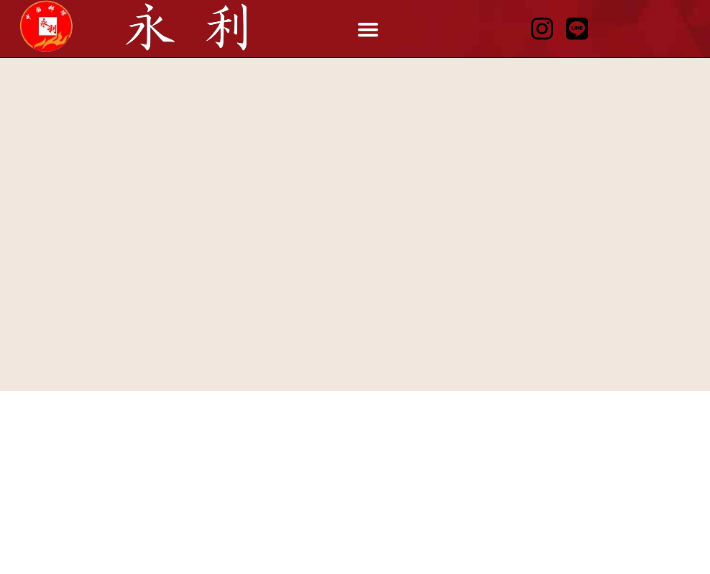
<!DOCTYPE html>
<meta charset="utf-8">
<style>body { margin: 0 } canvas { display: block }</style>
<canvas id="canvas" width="710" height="574"></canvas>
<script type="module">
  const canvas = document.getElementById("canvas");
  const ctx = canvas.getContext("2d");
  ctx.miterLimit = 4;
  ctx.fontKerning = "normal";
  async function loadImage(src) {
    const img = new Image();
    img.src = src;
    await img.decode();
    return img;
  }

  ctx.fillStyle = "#f2e7df";
  ctx.fillRect(0, 0, 710, 574);
  ctx.drawImage(await loadImage("img1.png"), 0, 0, 710, 57);
  ctx.fillStyle = "#000000";
  ctx.fillRect(0, 57, 710, 1);
  ctx.drawImage(await loadImage("img2.png"), 19, 0, 228, 52);
  ctx.drawImage(await loadImage("img3.png"), 357, 22, 22, 15);
  ctx.drawImage(await loadImage("img4.png"), 531, 17, 22, 23);
  ctx.drawImage(await loadImage("img5.png"), 566, 17, 22, 23);
  ctx.fillStyle = "#ffffff";
  ctx.fillRect(0, 391, 710, 183);
</script>
